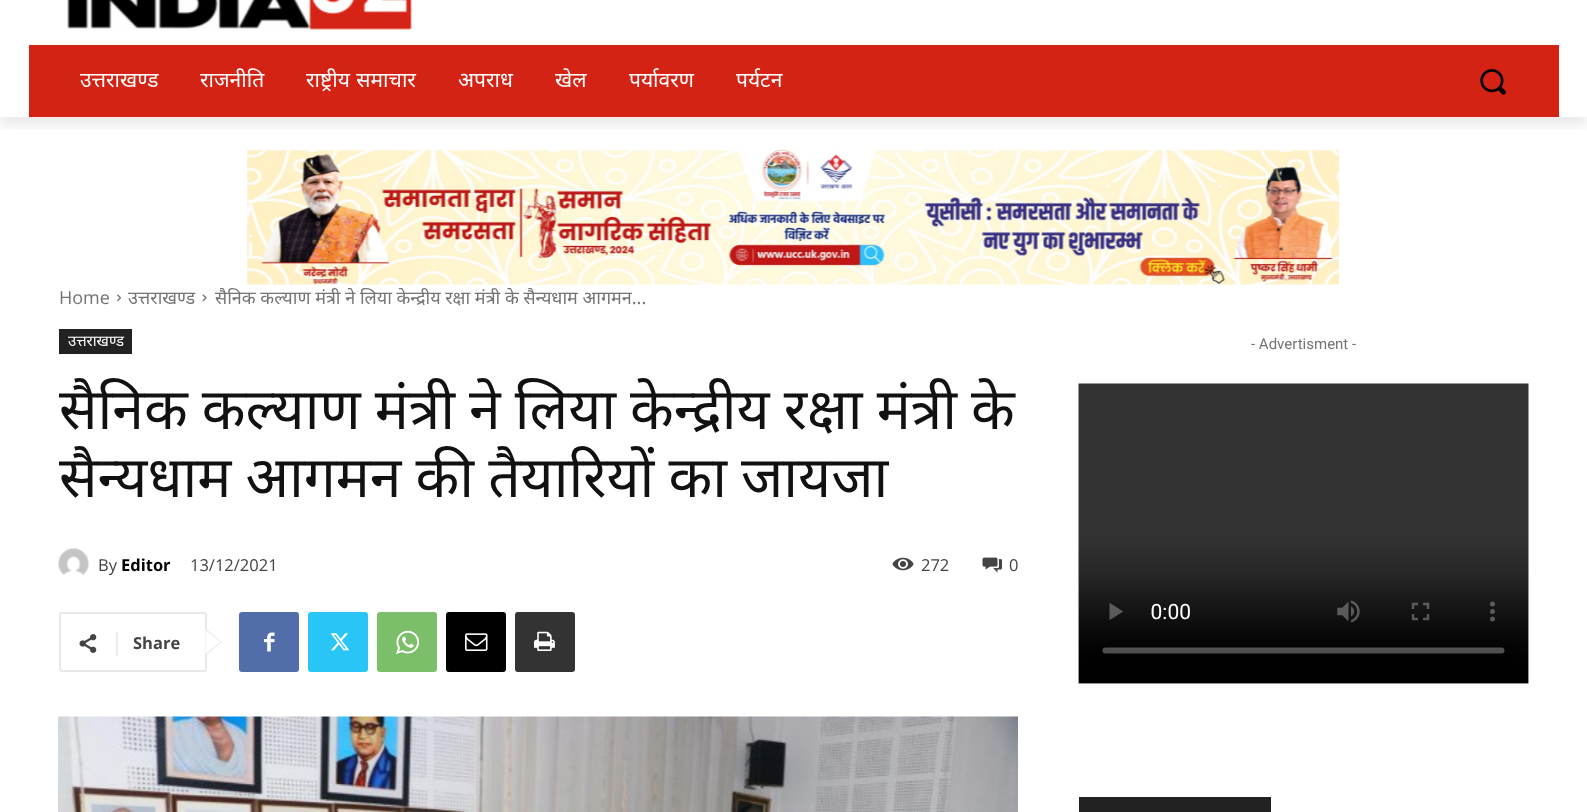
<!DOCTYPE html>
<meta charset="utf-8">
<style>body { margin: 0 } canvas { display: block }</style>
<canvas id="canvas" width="1587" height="812"></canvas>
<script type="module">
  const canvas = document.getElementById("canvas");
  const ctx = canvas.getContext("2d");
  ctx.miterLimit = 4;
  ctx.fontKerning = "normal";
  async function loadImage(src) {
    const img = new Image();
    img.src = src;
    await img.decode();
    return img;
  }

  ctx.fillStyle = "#ffffff";
  ctx.fillRect(0, 0, 1587, 812);
  ctx.drawImage(await loadImage("img1.png"), 67, 0, 345, 31);
  ctx.fillStyle = "#d42214";
  ctx.fillRect(29, 45, 1530, 72);
  ctx.save();
  ctx.beginPath();
  ctx.rect(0, 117, 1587, 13);
  ctx.clip();
  ctx.fillStyle = "rgba(0, 0, 0, 0.08)";
  ctx.filter = "blur(6px)";
  ctx.beginPath();
  ctx.rect(0, -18, 1587, 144);
  ctx.fill();
  ctx.filter = "none";
  ctx.restore();
  ctx.font = "21px Noto Sans";
  ctx.fillStyle = "#ffffff";
  ctx.fillText("उत्तराखण्ड", 80, 87);
  ctx.fillText("राजनीति", 200, 87);
  ctx.wordSpacing = "1px";
  ctx.fillText("राष्ट्रीय समाचार", 306, 87);
  ctx.wordSpacing = "0px";
  ctx.fillText("अपराध", 458, 87);
  ctx.fillText("खेल", 555, 87);
  ctx.fillText("पर्यावरण", 629, 87);
  ctx.fillText("पर्यटन", 736, 87);
  ctx.drawImage(await loadImage("img2.png"), 1480, 69, 26, 26);
  ctx.drawImage(await loadImage("img3.png"), 247, 149, 1092, 136);
  ctx.font = "18px Open Sans";
  ctx.fillStyle = "#747474";
  ctx.fillText("Home", 59, 304);
  ctx.drawImage(await loadImage("img4.png"), 117, 294, 4, 8);
  ctx.font = "18px Noto Sans";
  ctx.fillText("उत्तराखण्ड", 128, 304);
  ctx.drawImage(await loadImage("img5.png"), 202, 294, 5, 8);
  ctx.fillText("सैनिक कल्याण मंत्री ने लिया केन्द्रीय रक्षा मंत्री के सैन्यधाम आगमन...", 215, 304);
  ctx.fillStyle = "#222222";
  ctx.fillRect(59, 329, 73, 25);
  ctx.font = "15px Noto Sans";
  ctx.fillStyle = "#ffffff";
  ctx.fillText("उत्तराखण्ड", 68, 346);
  ctx.wordSpacing = "-0.75px";
  ctx.font = "57px Noto Sans";
  ctx.fillStyle = "#111111";
  ctx.fillText("सैनिक कल्याण मंत्री ने लिया केन्द्रीय रक्षा मंत्री", 59, 429);
  ctx.wordSpacing = "0px";
  ctx.fillText("के", 971, 429);
  ctx.wordSpacing = "-0.75px";
  ctx.fillText("सैन्यधाम आगमन की तैयारियों का जायजा", 59, 497);
  ctx.drawImage(await loadImage("img6.png"), 58, 548, 31, 27);
  ctx.wordSpacing = "0px";
  ctx.font = "16.5px Open Sans";
  ctx.fillStyle = "#444444";
  ctx.fillText("By", 98, 571);
  ctx.font = "bold 16.5px Open Sans";
  ctx.fillStyle = "#000000";
  ctx.fillText("Editor", 121, 571);
  ctx.font = "16.5px Open Sans";
  ctx.fillStyle = "#444444";
  ctx.fillText("13/12/2021", 190, 571);
  ctx.drawImage(await loadImage("img7.png"), 892, 557, 22, 14);
  ctx.fillText("272", 921, 571);
  ctx.drawImage(await loadImage("img8.png"), 982, 557, 20, 16);
  ctx.fillText("0", 1009, 571);
  ctx.beginPath();
  ctx.roundRect(60, 613, 146, 58, 2);
  ctx.strokeStyle = "#e9e9e9";
  ctx.lineWidth = 2;
  ctx.stroke();
  ctx.fillStyle = "#e9e9e9";
  ctx.beginPath();
  ctx.moveTo(205.5, 655.5);
  ctx.lineTo(205.5, 628.5);
  ctx.lineTo(222, 642);
  ctx.closePath();
  ctx.fill();
  ctx.drawImage(await loadImage("img9.png"), 79, 634, 18, 19);
  ctx.fillStyle = "#ebebeb";
  ctx.fillRect(116, 632, 2, 24);
  ctx.font = "bold 16.5px Open Sans";
  ctx.fillStyle = "#444444";
  ctx.fillText("Share", 133, 649);
  ctx.fillStyle = "#ffffff";
  ctx.beginPath();
  ctx.moveTo(205.5, 654);
  ctx.lineTo(205.5, 630);
  ctx.lineTo(220.5, 642);
  ctx.closePath();
  ctx.fill();
  ctx.fillStyle = "#516eab";
  ctx.beginPath();
  ctx.roundRect(239, 612, 60, 60, 3);
  ctx.fill();
  ctx.drawImage(await loadImage("img10.png"), 264, 632, 11, 20);
  ctx.fillStyle = "#29c5f6";
  ctx.beginPath();
  ctx.roundRect(308, 612, 60, 60, 3);
  ctx.fill();
  ctx.drawImage(await loadImage("img11.png"), 330, 633, 20, 18);
  ctx.fillStyle = "#7bbf6a";
  ctx.beginPath();
  ctx.roundRect(377, 612, 60, 60, 3);
  ctx.fill();
  ctx.drawImage(await loadImage("img12.png"), 396, 630, 24, 24);
  ctx.fillStyle = "#000000";
  ctx.beginPath();
  ctx.roundRect(446, 612, 60, 60, 3);
  ctx.fill();
  ctx.drawImage(await loadImage("img13.png"), 465, 633, 23, 18);
  ctx.fillStyle = "#333333";
  ctx.beginPath();
  ctx.roundRect(515, 612, 60, 60, 3);
  ctx.fill();
  ctx.drawImage(await loadImage("img14.png"), 534, 631, 21, 20);
  ctx.drawImage(await loadImage("img15.png"), 58, 716, 960, 96);
  ctx.font = "15px Roboto";
  ctx.fillStyle = "#747474";
  ctx.fillText("- Advertisment -", 1251, 349);
  ctx.drawImage(await loadImage("img16.png"), 1078, 383, 451, 301);
  ctx.fillStyle = "#222222";
  ctx.fillRect(1079, 797, 192, 15);
</script>
